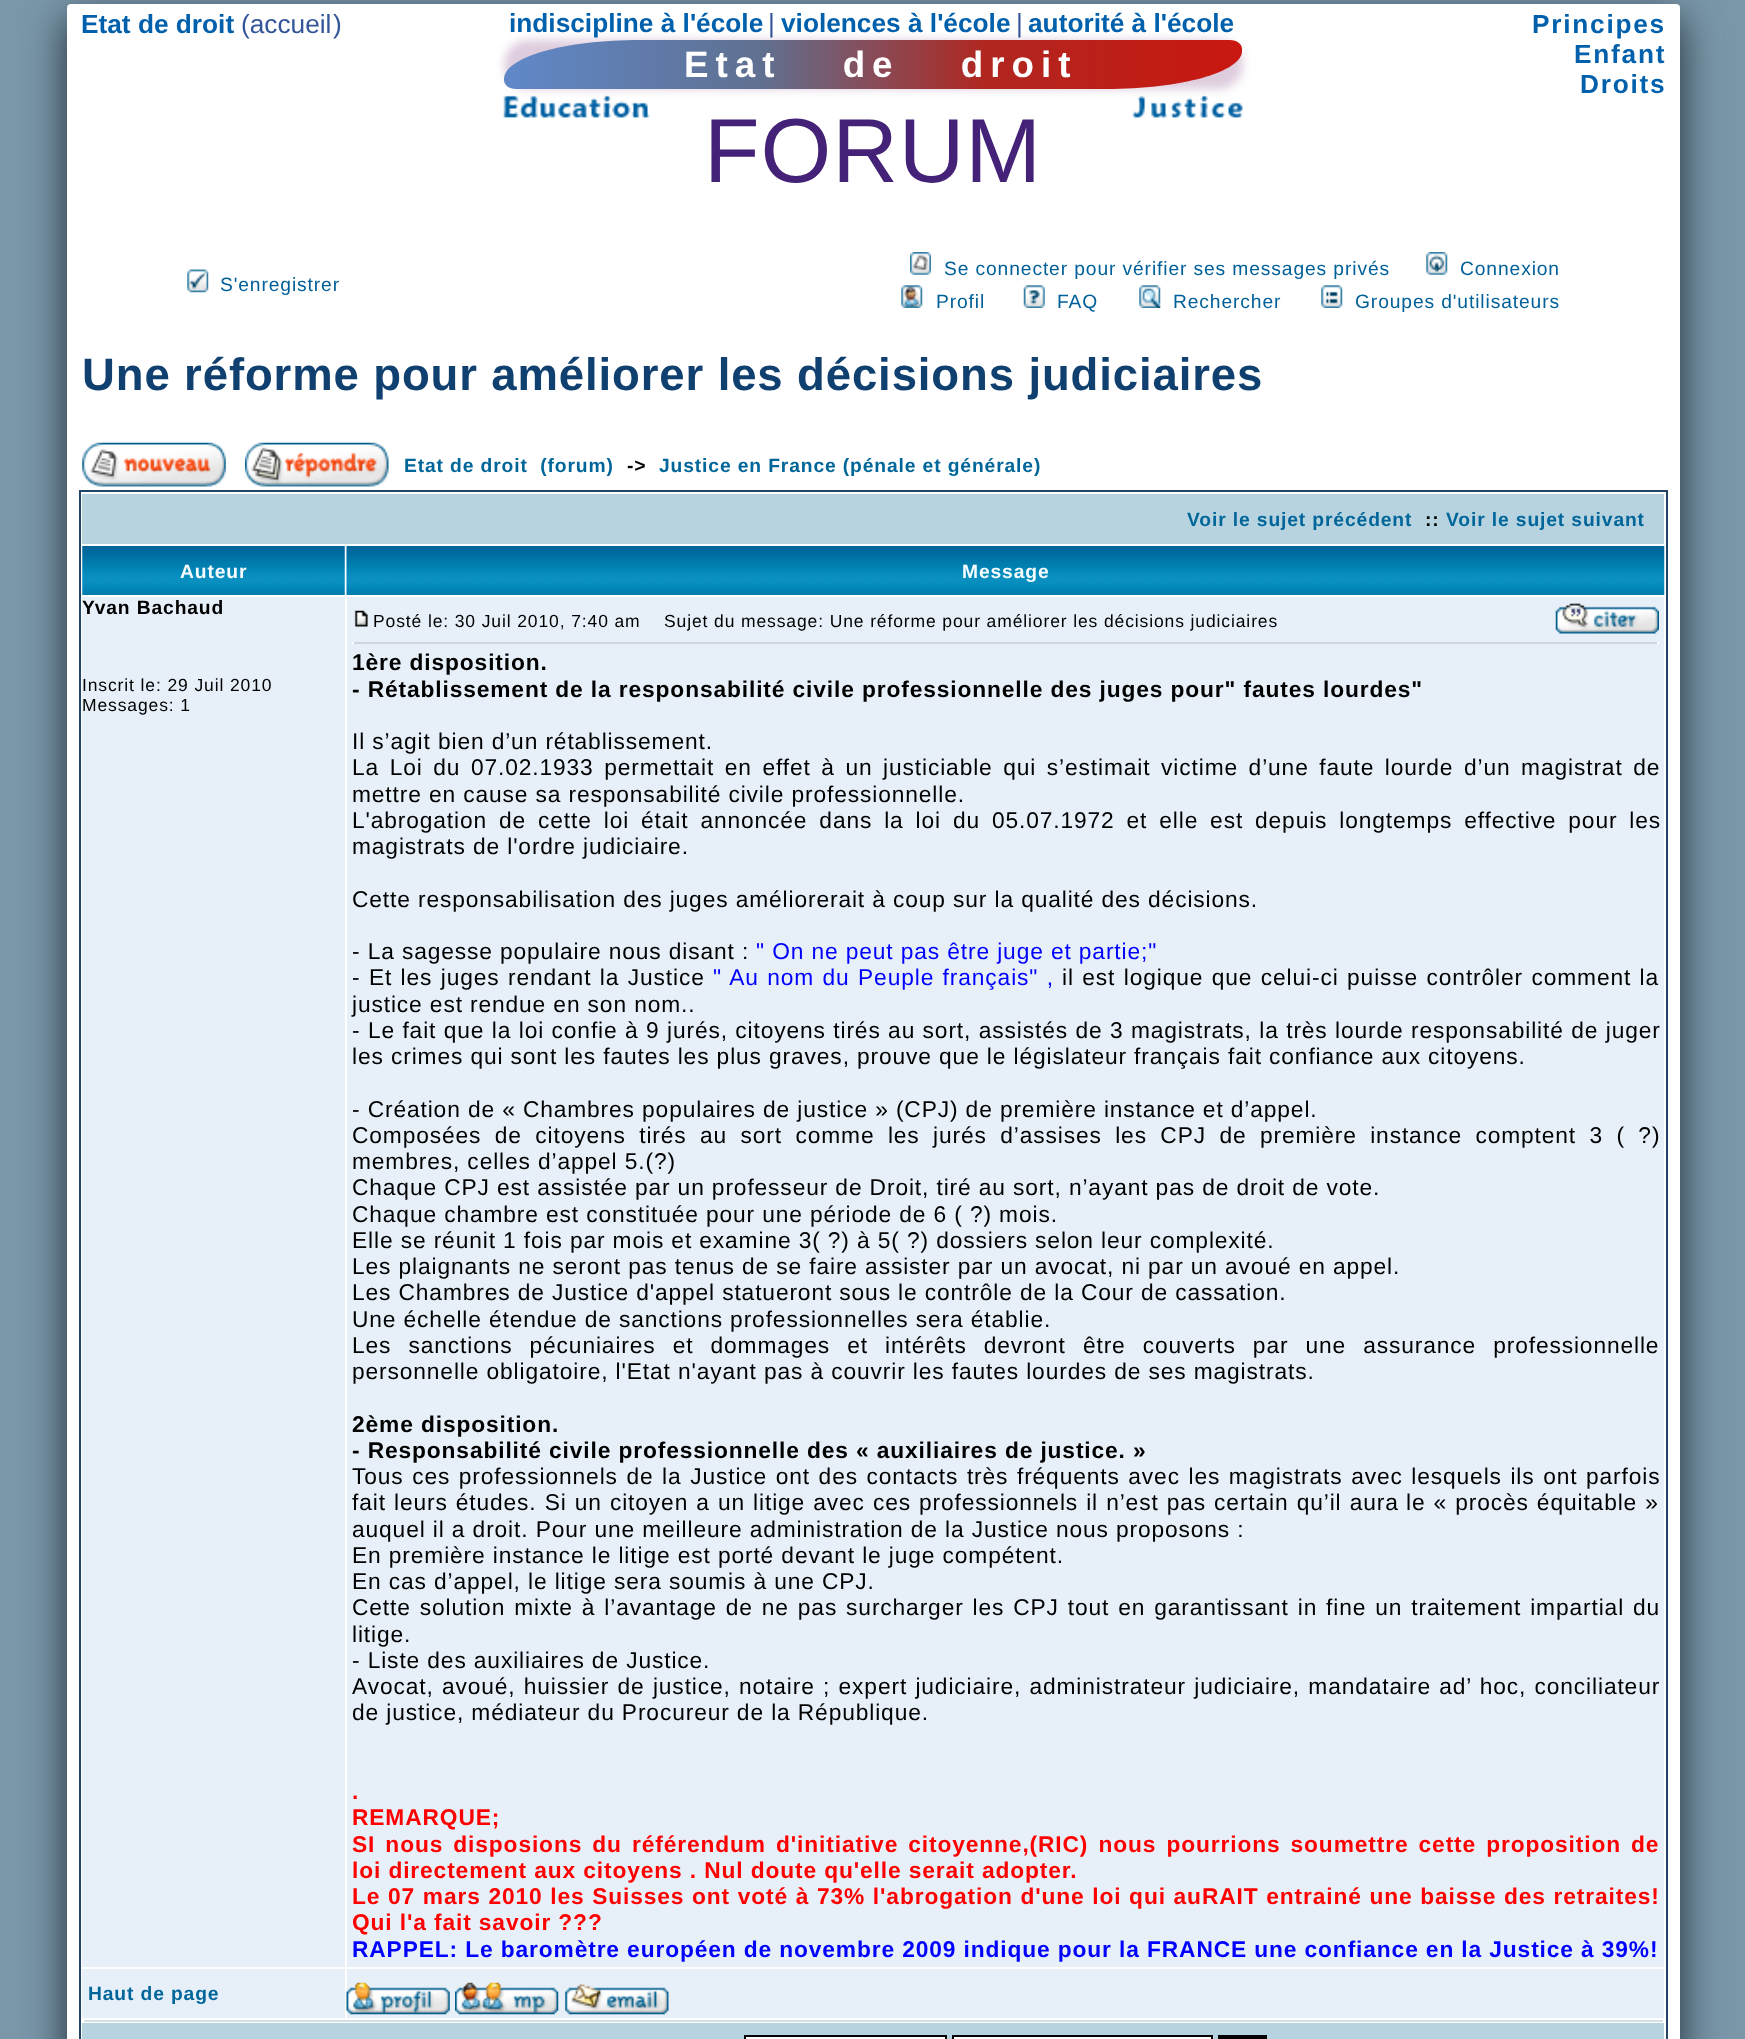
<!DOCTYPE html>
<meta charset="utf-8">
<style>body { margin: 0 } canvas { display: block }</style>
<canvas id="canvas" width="1745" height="2039"></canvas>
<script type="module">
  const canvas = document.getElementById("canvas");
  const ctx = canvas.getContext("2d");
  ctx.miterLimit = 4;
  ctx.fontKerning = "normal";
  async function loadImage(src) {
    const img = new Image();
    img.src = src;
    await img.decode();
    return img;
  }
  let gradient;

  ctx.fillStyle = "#7997a9";
  ctx.fillRect(0, 0, 1745, 2039);
  ctx.fillStyle = "#202935";
  ctx.filter = "blur(21px)";
  ctx.beginPath();
  ctx.roundRect(67, 18, 1613, 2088, 4);
  ctx.fill();
  ctx.filter = "none";
  ctx.fillStyle = "#ffffff";
  ctx.beginPath();
  ctx.roundRect(67, 4, 1613, 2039, 4);
  ctx.fill();
  ctx.font = "bold 26.25px Liberation Sans";
  ctx.fillStyle = "#0060ac";
  ctx.fillText("Etat de droit", 81, 33);
  ctx.font = "26.25px Liberation Sans";
  ctx.fillStyle = "#335599";
  ctx.fillText("(accueil", 241, 33);
  ctx.fillText(")", 333, 33);
  ctx.fillStyle = "#ddccdd";
  ctx.filter = "blur(5px)";
  ctx.beginPath();
  ctx.roundRect(504, 40, 739, 49, 39);
  ctx.fill();
  ctx.filter = "none";
  ctx.font = "bold 26.25px Liberation Sans";
  ctx.fillStyle = "#0060ac";
  ctx.fillText("indiscipline à l'école", 509, 32);
  ctx.font = "26.25px Liberation Sans";
  ctx.fillStyle = "#335599";
  ctx.fillText("|", 768, 32);
  ctx.font = "bold 26.25px Liberation Sans";
  ctx.fillStyle = "#0060ac";
  ctx.fillText("violences à l'école", 781, 32);
  ctx.font = "26.25px Liberation Sans";
  ctx.fillStyle = "#335599";
  ctx.fillText("|", 1016, 32);
  ctx.font = "bold 26.25px Liberation Sans";
  ctx.fillStyle = "#0060ac";
  ctx.fillText("autorité à l'école", 1028, 32);
  ctx.letterSpacing = "1.75px";
  ctx.fillText("Principes", 1532, 33);
  ctx.fillText("Enfant", 1574, 63);
  ctx.fillText("Droits", 1580, 93);
  gradient = ctx.createLinearGradient(504, 65, 1243, 65);
  gradient.addColorStop(0, "#6088c9");
  gradient.addColorStop(0.35, "#607090");
  gradient.addColorStop(0.65, "#b02720");
  gradient.addColorStop(1, "#c91710");
  ctx.fillStyle = gradient;
  ctx.beginPath();
  ctx.moveTo(640, 40);
  ctx.lineTo(1230, 40);
  ctx.bezierCurveTo(1237, 40, 1242, 44, 1242, 49);
  ctx.lineTo(1242, 51);
  ctx.bezierCurveTo(1242, 72, 1181, 89, 1106, 89);
  ctx.lineTo(516, 89);
  ctx.bezierCurveTo(509, 89, 504, 85, 504, 80);
  ctx.lineTo(504, 79);
  ctx.bezierCurveTo(504, 57, 565, 40, 640, 40);
  ctx.closePath();
  ctx.fill();
  ctx.letterSpacing = "7px";
  ctx.wordSpacing = "44px";
  ctx.font = "bold 36.75px Liberation Sans";
  ctx.fillStyle = "#ffffff";
  ctx.fillText("Etat de droit", 684, 77);
  ctx.drawImage(await loadImage("img1.png"), 503, 95, 147, 23);
  ctx.drawImage(await loadImage("img2.png"), 1132, 95, 111, 23);
  ctx.letterSpacing = "0.88px";
  ctx.wordSpacing = "0px";
  ctx.font = "91px Liberation Sans";
  ctx.fillStyle = "#442277";
  ctx.fillText("FORUM", 704, 182);
  ctx.drawImage(await loadImage("img3.png"), 910, 252, 21, 23);
  ctx.font = "19.25px Liberation Sans";
  ctx.fillStyle = "#006099";
  ctx.fillText("Se connecter pour vérifier ses messages privés", 944, 275);
  ctx.drawImage(await loadImage("img4.png"), 1426, 252, 22, 23);
  ctx.fillText("Connexion", 1460, 275);
  ctx.drawImage(await loadImage("img5.png"), 187, 269, 22, 24);
  ctx.fillText("S'enregistrer", 220, 291);
  ctx.drawImage(await loadImage("img6.png"), 901, 285, 22, 23);
  ctx.fillText("Profil", 936, 308);
  ctx.drawImage(await loadImage("img7.png"), 1023, 285, 22, 23);
  ctx.fillText("FAQ", 1057, 308);
  ctx.drawImage(await loadImage("img8.png"), 1139, 285, 22, 23);
  ctx.fillText("Rechercher", 1173, 308);
  ctx.drawImage(await loadImage("img9.png"), 1321, 285, 22, 23);
  ctx.fillText("Groupes d'utilisateurs", 1355, 308);
  ctx.font = "bold 45.5px Liberation Sans";
  ctx.fillStyle = "#104070";
  ctx.fillText("Une réforme pour améliorer les décisions judiciaires", 82, 390);
  ctx.drawImage(await loadImage("img10.png"), 82, 442, 144, 45);
  ctx.drawImage(await loadImage("img11.png"), 245, 442, 144, 45);
  ctx.font = "bold 19.25px Liberation Sans";
  ctx.fillStyle = "#006699";
  ctx.fillText("Etat de droit  (forum)", 404, 472);
  ctx.fillStyle = "#000000";
  ctx.fillText("->", 627, 472);
  ctx.fillStyle = "#006699";
  ctx.fillText("Justice en France (pénale et générale)", 659, 472);
  ctx.strokeStyle = "#224466";
  ctx.lineWidth = 2;
  ctx.strokeRect(80, 491, 1587, 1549);
  ctx.fillStyle = "#b7d3e0";
  ctx.fillRect(82, 494, 1582, 50);
  ctx.fillStyle = "#006699";
  ctx.fillText("Voir le sujet précédent", 1187, 526);
  ctx.fillStyle = "#000000";
  ctx.fillText("::", 1425, 526);
  ctx.fillStyle = "#006699";
  ctx.fillText("Voir le sujet suivant", 1446, 526);
  ctx.drawImage(await loadImage("img12.png"), 82, 546, 263, 49);
  ctx.fillStyle = "#f7fdff";
  ctx.fillText("Auteur", 180, 578);
  ctx.drawImage(await loadImage("img13.png"), 346, 546, 1319, 49);
  ctx.fillText("Message", 962, 578);
  ctx.fillStyle = "#e7f0f9";
  ctx.fillRect(82, 597, 263, 1370);
  ctx.fillStyle = "#000000";
  ctx.fillText("Yvan Bachaud", 82, 614);
  ctx.font = "17.5px Liberation Sans";
  ctx.fillText("Inscrit le: 29 Juil 2010", 82, 691);
  ctx.fillText("Messages: 1", 82, 711);
  ctx.fillStyle = "#e7f0f9";
  ctx.fillRect(347, 597, 1317, 1370);
  ctx.drawImage(await loadImage("img14.png"), 354, 610, 14, 17);
  ctx.fillStyle = "#000000";
  ctx.fillText("Posté le: 30 Juil 2010, 7:40 am", 373, 627);
  ctx.fillText("Sujet du message: Une réforme pour améliorer les décisions judiciaires", 664, 627);
  ctx.drawImage(await loadImage("img15.png"), 1555, 603, 104, 31);
  ctx.fillStyle = "#d0d5dc";
  ctx.fillRect(354, 642, 1303, 2);
  ctx.fillStyle = "#ffffff";
  ctx.fillRect(1657, 642, 2, 2);
  ctx.fillRect(352, 642, 2, 2);
  ctx.font = "bold 22.75px Liberation Sans";
  ctx.fillStyle = "#000000";
  ctx.fillText("1ère disposition.", 352, 670);
  ctx.fillText("- Rétablissement de la responsabilité civile professionnelle des juges pour\" fautes lourdes\"", 352, 697);
  ctx.font = "22.75px Liberation Sans";
  ctx.fillText("Il s’agit bien d’un rétablissement.", 352, 749);
  ctx.wordSpacing = "3.4px";
  ctx.fillText("La Loi du 07.02.1933 permettait en effet à un justiciable qui s’estimait victime d’une faute lourde d’un magistrat de", 352, 775);
  ctx.wordSpacing = "0px";
  ctx.fillText("mettre en cause sa responsabilité civile professionnelle.", 352, 802);
  ctx.wordSpacing = "4.75px";
  ctx.fillText("L'abrogation de cette loi était annoncée dans la loi du 05.07.1972 et elle est depuis longtemps effective pour les", 352, 828);
  ctx.wordSpacing = "0px";
  ctx.fillText("magistrats de l'ordre judiciaire.", 352, 854);
  ctx.fillText("Cette responsabilisation des juges améliorerait à coup sur la qualité des décisions.", 352, 907);
  ctx.fillText("- La sagesse populaire nous disant :", 352, 959);
  ctx.fillStyle = "#0000ff";
  ctx.fillText("\" On ne peut pas être juge et partie;\"", 756, 959);
  ctx.wordSpacing = "1.25px";
  ctx.fillStyle = "#000000";
  ctx.fillText("- Et les juges rendant la Justice", 352, 985);
  ctx.fillStyle = "#0000ff";
  ctx.fillText("\" Au nom du Peuple français\" ,", 713, 985);
  ctx.fillStyle = "#000000";
  ctx.fillText("il est logique que celui-ci puisse contrôler comment la", 1062, 985);
  ctx.wordSpacing = "0px";
  ctx.fillText("justice est rendue en son nom..", 352, 1012);
  ctx.wordSpacing = "0.25px";
  ctx.fillText("- Le fait que la loi confie à 9 jurés, citoyens tirés au sort, assistés de 3 magistrats, la très lourde responsabilité de juger", 352, 1038);
  ctx.wordSpacing = "0px";
  ctx.fillText("les crimes qui sont les fautes les plus graves, prouve que le législateur français fait confiance aux citoyens.", 352, 1064);
  ctx.fillText("- Création de « Chambres populaires de justice » (CPJ) de première instance et d’appel.", 352, 1117);
  ctx.wordSpacing = "6.25px";
  ctx.fillText("Composées de citoyens tirés au sort comme les jurés d’assises les CPJ de première instance comptent 3 ( ?)", 352, 1143);
  ctx.wordSpacing = "0px";
  ctx.fillText("membres, celles d’appel 5.(?)", 352, 1169);
  ctx.fillText("Chaque CPJ est assistée par un professeur de Droit, tiré au sort, n’ayant pas de droit de vote.", 352, 1195);
  ctx.fillText("Chaque chambre est constituée pour une période de 6 ( ?) mois.", 352, 1222);
  ctx.fillText("Elle se réunit 1 fois par mois et examine 3( ?) à 5( ?) dossiers selon leur complexité.", 352, 1248);
  ctx.fillText("Les plaignants ne seront pas tenus de se faire assister par un avocat, ni par un avoué en appel.", 352, 1274);
  ctx.fillText("Les Chambres de Justice d'appel statueront sous le contrôle de la Cour de cassation.", 352, 1300);
  ctx.fillText("Une échelle étendue de sanctions professionnelles sera établie.", 352, 1327);
  ctx.wordSpacing = "9.9px";
  ctx.fillText("Les sanctions pécuniaires et dommages et intérêts devront être couverts par une assurance professionnelle", 352, 1353);
  ctx.wordSpacing = "0px";
  ctx.fillText("personnelle obligatoire, l'Etat n'ayant pas à couvrir les fautes lourdes de ses magistrats.", 352, 1379);
  ctx.font = "bold 22.75px Liberation Sans";
  ctx.fillText("2ème disposition.", 352, 1432);
  ctx.fillText("- Responsabilité civile professionnelle des « auxiliaires de justice. »", 352, 1458);
  ctx.wordSpacing = "1.4px";
  ctx.font = "22.75px Liberation Sans";
  ctx.fillText("Tous ces professionnels de la Justice ont des contacts très fréquents avec les magistrats avec lesquels ils ont parfois", 352, 1484);
  ctx.wordSpacing = "0.9px";
  ctx.fillText("fait leurs études. Si un citoyen a un litige avec ces professionnels il n’est pas certain qu’il aura", 352, 1510);
  ctx.fillText("le « procès équitable »", 1406, 1510);
  ctx.wordSpacing = "0px";
  ctx.fillText("auquel il a droit. Pour une meilleure administration de la Justice nous proposons :", 352, 1537);
  ctx.fillText("En première instance le litige est porté devant le juge compétent.", 352, 1563);
  ctx.fillText("En cas d’appel, le litige sera soumis à une CPJ.", 352, 1589);
  ctx.wordSpacing = "1.75px";
  ctx.fillText("Cette solution mixte à l’avantage de ne pas surcharger les CPJ tout en garantissant in fine un traitement impartial du", 352, 1615);
  ctx.wordSpacing = "0px";
  ctx.fillText("litige.", 352, 1642);
  ctx.fillText("- Liste des auxiliaires de Justice.", 352, 1668);
  ctx.wordSpacing = "1.1px";
  ctx.fillText("Avocat, avoué, huissier de justice, notaire ; expert judiciaire, administrateur judiciaire, mandataire ad’ hoc, conciliateur", 352, 1694);
  ctx.wordSpacing = "0px";
  ctx.fillText("de justice, médiateur du Procureur de la République.", 352, 1720);
  ctx.font = "bold 22.75px Liberation Sans";
  ctx.fillStyle = "#ff0000";
  ctx.fillText(".", 352, 1799);
  ctx.fillText("REMARQUE;", 352, 1825);
  ctx.wordSpacing = "2.9px";
  ctx.fillText("SI nous disposions du référendum d'initiative citoyenne,(RIC) nous pourrions soumettre cette proposition de", 352, 1852);
  ctx.wordSpacing = "0px";
  ctx.fillText("loi directement aux citoyens . Nul doute qu'elle serait adopter.", 352, 1878);
  ctx.wordSpacing = "0.5px";
  ctx.fillText("Le 07 mars 2010 les Suisses ont voté à 73% l'abrogation d'une loi qui auRAIT entrainé une baisse des retraites!", 352, 1904);
  ctx.wordSpacing = "0px";
  ctx.fillText("Qui l'a fait savoir ???", 352, 1930);
  ctx.fillStyle = "#0000ff";
  ctx.fillText("RAPPEL: Le baromètre européen de novembre 2009 indique pour la FRANCE une confiance en la Justice à 39%!", 352, 1957);
  ctx.fillStyle = "#e7f0f9";
  ctx.fillRect(82, 1969, 263, 49);
  ctx.font = "bold 19.25px Liberation Sans";
  ctx.fillStyle = "#006699";
  ctx.fillText("Haut de page", 88, 2000);
  ctx.fillStyle = "#e7f0f9";
  ctx.fillRect(347, 1969, 1317, 49);
  ctx.drawImage(await loadImage("img16.png"), 346, 1982, 104, 33);
  ctx.drawImage(await loadImage("img17.png"), 455, 1982, 104, 33);
  ctx.drawImage(await loadImage("img18.png"), 565, 1984, 104, 31);
  ctx.fillStyle = "#d3e1e7";
  ctx.fillRect(84, 2020, 1579, 2);
  ctx.fillStyle = "#b7d3e0";
  ctx.fillRect(82, 2023, 1582, 16);
  ctx.fillStyle = "#ffffff";
  ctx.beginPath();
  ctx.rect(745, 2036, 201, 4);
  ctx.fill();
  ctx.strokeStyle = "#000000";
  ctx.stroke();
  ctx.beginPath();
  ctx.rect(953, 2036, 259, 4);
  ctx.fill();
  ctx.stroke();
  ctx.lineWidth = 4;
  ctx.strokeRect(1220, 2037, 45, 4);
</script>
